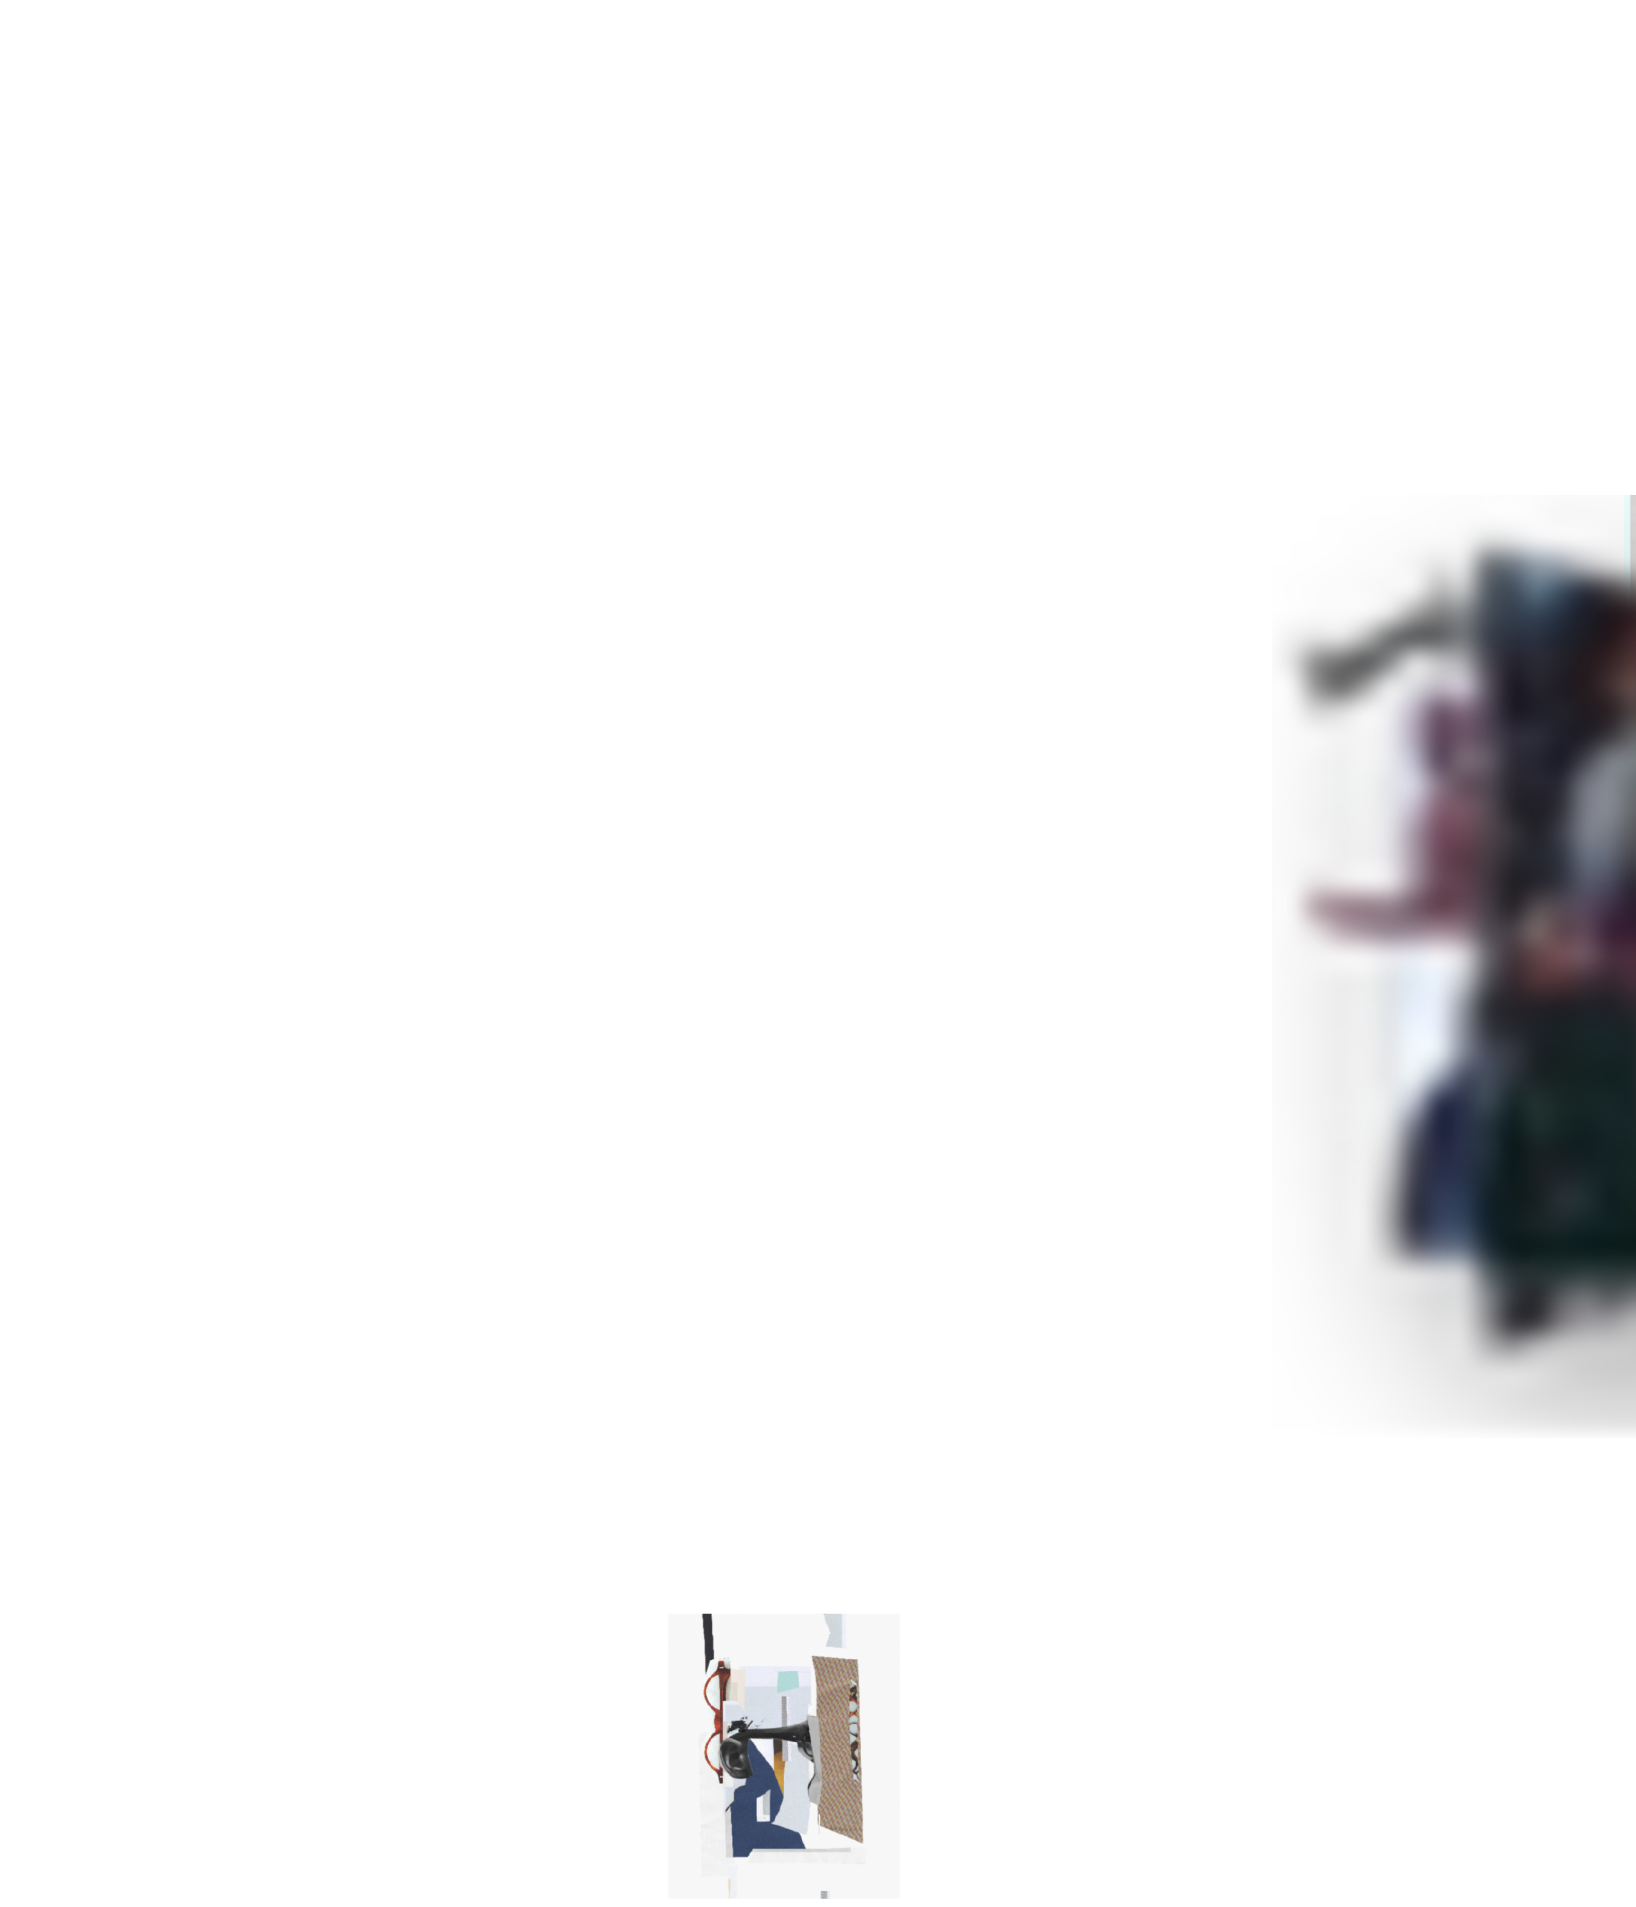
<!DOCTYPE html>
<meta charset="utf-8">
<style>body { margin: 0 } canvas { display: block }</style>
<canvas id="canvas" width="1636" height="1907"></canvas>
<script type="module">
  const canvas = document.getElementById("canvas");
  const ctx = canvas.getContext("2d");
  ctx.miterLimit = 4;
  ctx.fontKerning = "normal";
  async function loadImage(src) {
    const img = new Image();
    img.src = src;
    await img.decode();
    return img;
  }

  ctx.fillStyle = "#ffffff";
  ctx.fillRect(0, 0, 1636, 1907);
  ctx.drawImage(await loadImage("img2.png"), 1624, 495, 12, 391);
  ctx.drawImage(await loadImage("img1.png"), 1272, 495, 364, 943);
  ctx.drawImage(await loadImage("img3.png"), 668, 1613, 232, 286);
</script>
